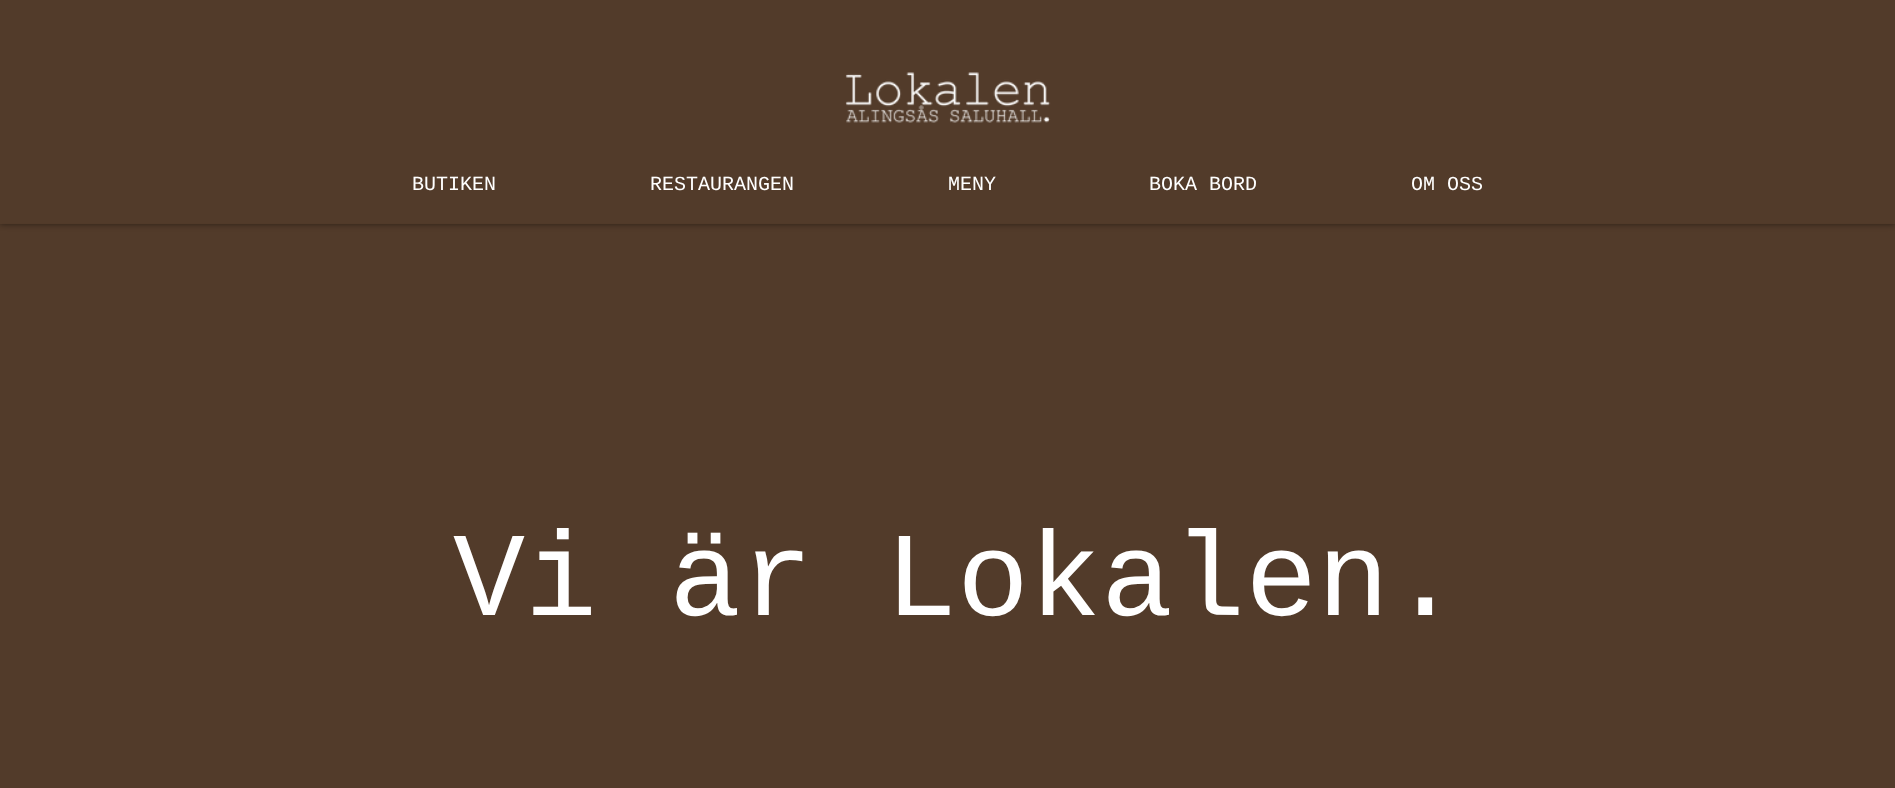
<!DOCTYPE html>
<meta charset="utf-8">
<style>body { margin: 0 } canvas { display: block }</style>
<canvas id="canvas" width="1895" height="788"></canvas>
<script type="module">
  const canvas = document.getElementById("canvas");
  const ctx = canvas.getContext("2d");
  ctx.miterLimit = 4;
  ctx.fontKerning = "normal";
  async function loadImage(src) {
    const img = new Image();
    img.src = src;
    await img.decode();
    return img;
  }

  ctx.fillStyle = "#523b2a";
  ctx.fillRect(0, 0, 1895, 788);
  ctx.save();
  ctx.beginPath();
  ctx.moveTo(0, 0);
  ctx.lineTo(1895, 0);
  ctx.lineTo(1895, 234);
  ctx.lineTo(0, 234);
  ctx.closePath();
  ctx.moveTo(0, 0);
  ctx.lineTo(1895, 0);
  ctx.lineTo(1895, 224);
  ctx.lineTo(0, 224);
  ctx.closePath();
  ctx.clip("evenodd");
  ctx.fillStyle = "rgba(0, 0, 0, 0.5)";
  ctx.filter = "blur(3px)";
  ctx.beginPath();
  ctx.rect(0, 0, 1895, 224);
  ctx.fill();
  ctx.filter = "none";
  ctx.restore();
  ctx.fillStyle = "rgba(82, 59, 42, 0.6)";
  ctx.fillRect(2, 223, 1891, 1);
  ctx.drawImage(await loadImage("img1.png"), 845, 72, 206, 51);
  ctx.font = "20px Liberation Mono";
  ctx.fillStyle = "#ffffff";
  ctx.fillText("BUTIKEN", 412, 190);
  ctx.fillText("RESTAURANGEN", 650, 190);
  ctx.fillText("MENY", 948, 190);
  ctx.fillText("BOKA BORD", 1149, 190);
  ctx.fillText("OM OSS", 1411, 190);
  ctx.font = "120px Liberation Mono";
  ctx.fillText("Vi är Lokalen.", 453, 615);
</script>
